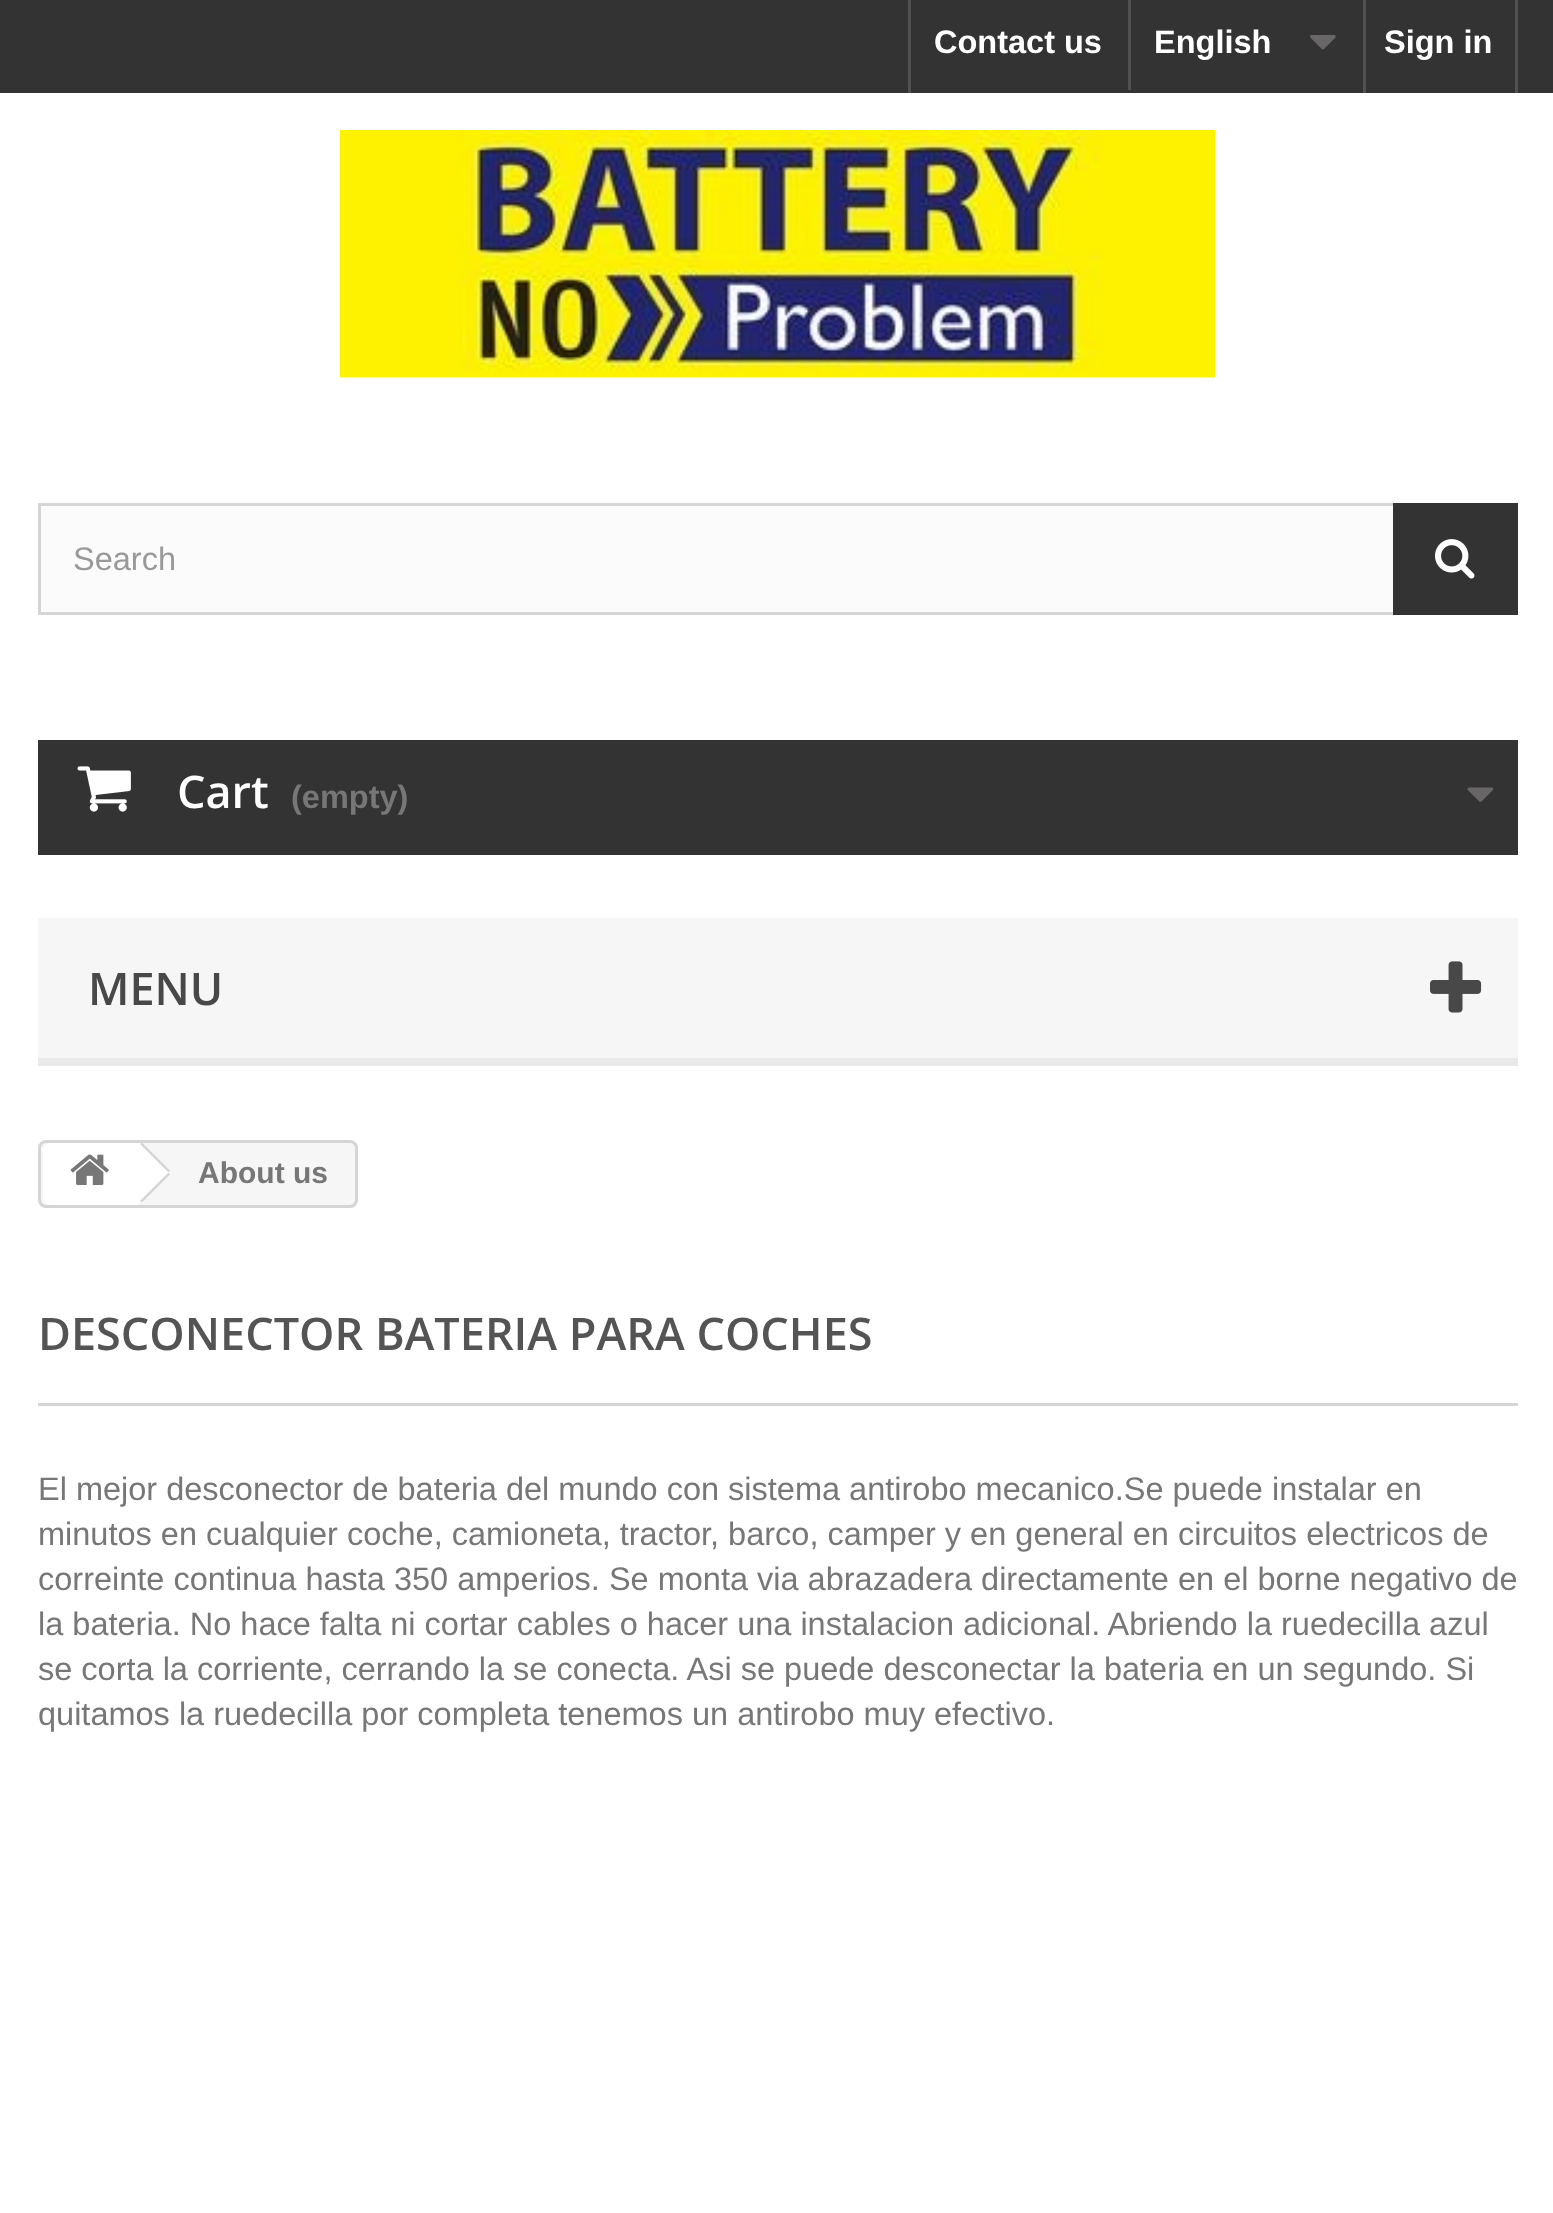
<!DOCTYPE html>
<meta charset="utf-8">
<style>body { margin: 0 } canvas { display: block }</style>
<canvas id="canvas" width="1553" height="2213"></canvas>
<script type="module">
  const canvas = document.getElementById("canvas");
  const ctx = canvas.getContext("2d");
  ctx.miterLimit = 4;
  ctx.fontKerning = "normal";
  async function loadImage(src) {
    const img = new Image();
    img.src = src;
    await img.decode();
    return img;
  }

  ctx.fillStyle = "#ffffff";
  ctx.fillRect(0, 0, 1553, 2213);
  ctx.fillStyle = "#333333";
  ctx.fillRect(0, 0, 1553, 93);
  ctx.fillStyle = "#515151";
  ctx.fillRect(908, 0, 3, 93);
  ctx.font = "bold 32.5px Liberation Sans";
  ctx.fillStyle = "#ffffff";
  ctx.fillText("Contact us", 934, 53);
  ctx.fillStyle = "#515151";
  ctx.fillRect(1128, 0, 3, 90);
  ctx.fillStyle = "#ffffff";
  ctx.fillText("English", 1154, 53);
  ctx.drawImage(await loadImage("img1.png"), 1310, 35, 26, 15);
  ctx.fillStyle = "#515151";
  ctx.fillRect(1515, 0, 3, 93);
  ctx.fillRect(1363, 0, 3, 93);
  ctx.fillStyle = "#ffffff";
  ctx.fillText("Sign in", 1384, 53);
  ctx.drawImage(await loadImage("img2.png"), 340, 130, 875, 248);
  ctx.fillStyle = "#fbfbfb";
  ctx.fillRect(41, 506, 1352, 106);
  ctx.strokeStyle = "#d6d4d4";
  ctx.lineWidth = 3;
  ctx.strokeRect(39.5, 504.5, 1477, 109);
  ctx.font = "32.5px Liberation Sans";
  ctx.fillStyle = "#999999";
  ctx.fillText("Search", 73, 570);
  ctx.fillStyle = "#333333";
  ctx.fillRect(1393, 503, 125, 112);
  ctx.drawImage(await loadImage("img3.png"), 1435, 539, 40, 40);
  ctx.fillRect(38, 740, 1480, 115);
  ctx.drawImage(await loadImage("img4.png"), 77, 766, 54, 46);
  ctx.font = "600 45px Open Sans";
  ctx.fillStyle = "#ffffff";
  ctx.fillText("Cart", 177, 808);
  ctx.font = "bold 32.5px Liberation Sans";
  ctx.fillStyle = "#777777";
  ctx.fillText("(empty)", 291, 808);
  ctx.drawImage(await loadImage("img5.png"), 1467, 787, 27, 15);
  ctx.fillStyle = "#f6f6f6";
  ctx.fillRect(38, 918, 1480, 140);
  ctx.fillStyle = "#e9e9e9";
  ctx.fillRect(38, 1058, 1480, 8);
  ctx.font = "600 45px Open Sans";
  ctx.fillStyle = "#484848";
  ctx.fillText("MENU", 88, 1005);
  ctx.drawImage(await loadImage("img6.png"), 1430, 961, 52, 52);
  ctx.fillStyle = "#f6f6f6";
  ctx.beginPath();
  ctx.roundRect(39.5, 1141.5, 317, 65, 6.5);
  ctx.fill();
  ctx.stroke();
  ctx.fillStyle = "#ffffff";
  ctx.beginPath();
  ctx.roundRect(43, 1143, 95, 62, [8, 0, 0, 8]);
  ctx.fill();
  ctx.drawImage(await loadImage("img7.png"), 70, 1154, 39, 31);
  ctx.beginPath();
  ctx.moveTo(144, 1144);
  ctx.lineTo(143, 1143);
  ctx.lineTo(137, 1143);
  ctx.lineTo(136, 1144);
  ctx.lineTo(112, 1169);
  ctx.bezierCurveTo(110, 1171, 110, 1174, 112, 1176);
  ctx.lineTo(136, 1201);
  ctx.bezierCurveTo(138, 1203, 142, 1203, 144, 1201);
  ctx.lineTo(168, 1176);
  ctx.bezierCurveTo(170, 1174, 170, 1171, 168, 1169);
  ctx.closePath();
  ctx.fill();
  ctx.fillStyle = "#d6d4d4";
  ctx.beginPath();
  ctx.moveTo(142, 1142.5);
  ctx.lineTo(170, 1170.5);
  ctx.lineTo(168.5, 1172.5);
  ctx.lineTo(140, 1144);
  ctx.closePath();
  ctx.fill();
  ctx.beginPath();
  ctx.moveTo(168.5, 1172.5);
  ctx.lineTo(170, 1174.5);
  ctx.lineTo(142, 1202.5);
  ctx.lineTo(140, 1201);
  ctx.closePath();
  ctx.fill();
  ctx.font = "bold 30px Liberation Sans";
  ctx.fillStyle = "#777777";
  ctx.fillText("About us", 198, 1183);
  ctx.fillStyle = "#d6d4d4";
  ctx.fillRect(38, 1403, 1480, 3);
  ctx.font = "600 45px Open Sans";
  ctx.fillStyle = "#555454";
  ctx.fillText("DESCONECTOR BATERIA PARA COCHES", 38, 1350);
  ctx.font = "32.5px Liberation Sans";
  ctx.fillStyle = "#777777";
  ctx.fillText("El mejor desconector de bateria del mundo con sistema antirobo mecanico.Se puede instalar en", 38, 1500);
  ctx.fillText("minutos en cualquier coche, camioneta, tractor, barco, camper y en general en circuitos electricos de", 38, 1545);
  ctx.fillText("correinte continua hasta 350 amperios. Se monta via abrazadera directamente en el borne negativo de", 38, 1590);
  ctx.fillText("la bateria. No hace falta ni cortar cables o hacer una instalacion adicional. Abriendo la ruedecilla azul", 38, 1635);
  ctx.fillText("se corta la corriente, cerrando la se conecta. Asi se puede desconectar la bateria en un segundo. Si", 38, 1680);
  ctx.fillText("quitamos la ruedecilla por completa tenemos un antirobo muy efectivo.", 38, 1725);
</script>
